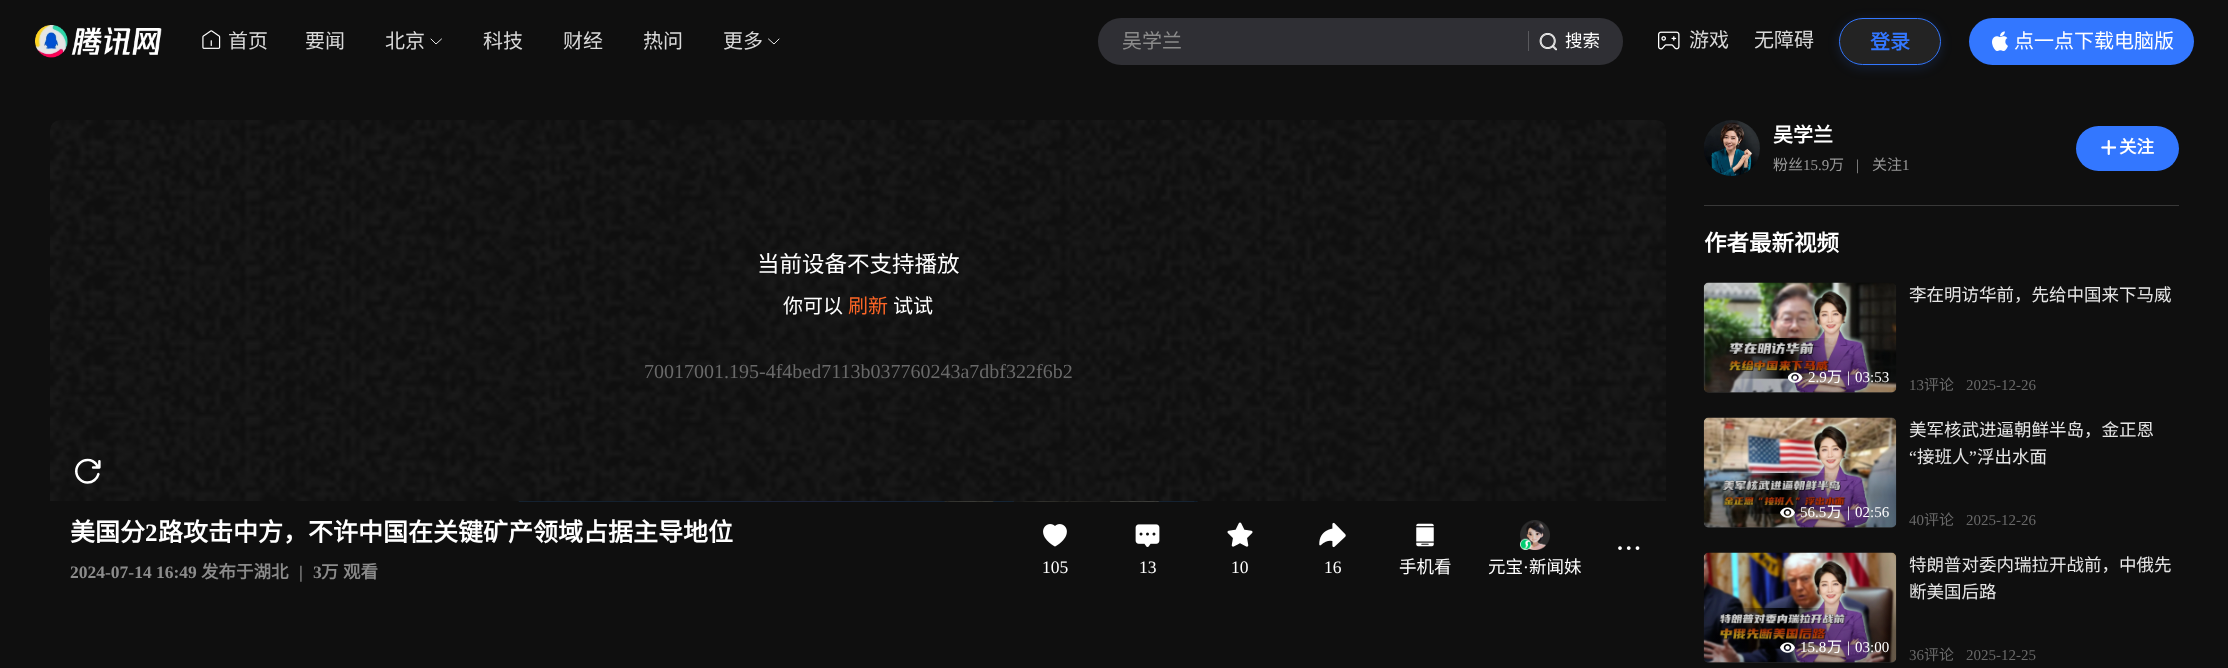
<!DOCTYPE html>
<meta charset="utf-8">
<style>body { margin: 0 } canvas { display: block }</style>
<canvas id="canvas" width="2228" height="668"></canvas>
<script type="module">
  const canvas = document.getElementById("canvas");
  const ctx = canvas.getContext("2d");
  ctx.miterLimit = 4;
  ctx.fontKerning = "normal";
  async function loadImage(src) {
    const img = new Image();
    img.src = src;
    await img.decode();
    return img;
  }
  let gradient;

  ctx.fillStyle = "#0f0f0f";
  ctx.fillRect(0, 0, 2228, 668);
  ctx.drawImage(await loadImage("img1.png"), 35, 25, 127, 33);
  ctx.drawImage(await loadImage("img2.png"), 202, 30, 19, 19);
  ctx.font = "20px Noto Sans CJK SC";
  ctx.fillStyle = "#d9d9d9";
  ctx.fillText("首页", 228, 48);
  ctx.fillText("要闻", 305, 48);
  ctx.fillText("北京", 385, 48);
  ctx.beginPath();
  ctx.moveTo(441.5, 39);
  ctx.lineTo(436, 44);
  ctx.lineTo(431, 39);
  ctx.strokeStyle = "#ffffff";
  ctx.lineWidth = 0.9;
  ctx.lineCap = "round";
  ctx.lineJoin = "round";
  ctx.stroke();
  ctx.fillText("科技", 483, 48);
  ctx.fillText("财经", 563, 48);
  ctx.fillText("热问", 643, 48);
  ctx.fillText("更多", 723, 48);
  ctx.beginPath();
  ctx.moveTo(779, 39);
  ctx.lineTo(774, 44);
  ctx.lineTo(768.5, 39);
  ctx.stroke();
  ctx.fillStyle = "#2f2f34";
  ctx.beginPath();
  ctx.roundRect(1098, 18, 525, 47, 23);
  ctx.fill();
  ctx.fillStyle = "#8b8b8b";
  ctx.fillText("吴学兰", 1122, 48);
  ctx.fillStyle = "#59595d";
  ctx.fillRect(1528, 31, 1, 20);
  ctx.drawImage(await loadImage("img3.png"), 1539, 32, 18, 19);
  ctx.font = "17.5px Noto Sans CJK SC";
  ctx.fillStyle = "#ffffff";
  ctx.fillText("搜索", 1565, 47);
  ctx.drawImage(await loadImage("img4.png"), 1658, 31, 22, 19);
  ctx.font = "20px Noto Sans CJK SC";
  ctx.fillStyle = "#d9d9d9";
  ctx.fillText("游戏", 1689, 47);
  ctx.fillText("无障碍", 1754, 47);
  ctx.save();
  ctx.beginPath();
  ctx.moveTo(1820, 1);
  ctx.lineTo(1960, 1);
  ctx.lineTo(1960, 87);
  ctx.lineTo(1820, 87);
  ctx.closePath();
  ctx.moveTo(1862.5, 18);
  ctx.lineTo(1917.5, 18);
  ctx.bezierCurveTo(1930.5, 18, 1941, 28.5, 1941, 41.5);
  ctx.bezierCurveTo(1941, 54.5, 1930.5, 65, 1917.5, 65);
  ctx.lineTo(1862.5, 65);
  ctx.bezierCurveTo(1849.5, 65, 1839, 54.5, 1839, 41.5);
  ctx.bezierCurveTo(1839, 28.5, 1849.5, 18, 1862.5, 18);
  ctx.closePath();
  ctx.clip("evenodd");
  ctx.fillStyle = "rgba(51, 119, 255, 0.16)";
  ctx.filter = "blur(6px)";
  ctx.beginPath();
  ctx.roundRect(1839, 20, 102, 48, 24);
  ctx.fill();
  ctx.filter = "none";
  ctx.restore();
  ctx.fillStyle = "rgba(217, 217, 217, 0.1)";
  ctx.beginPath();
  ctx.roundRect(1839.5, 18.5, 101, 46, 23);
  ctx.fill();
  ctx.strokeStyle = "#3377ff";
  ctx.lineWidth = 1;
  ctx.lineJoin = "miter";
  ctx.stroke();
  ctx.font = "bold 20px Noto Sans CJK SC";
  ctx.fillStyle = "#3377ff";
  ctx.fillText("登录", 1870, 49);
  ctx.beginPath();
  ctx.roundRect(1969, 18, 225, 47, 23.5);
  ctx.fill();
  ctx.drawImage(await loadImage("img5.png"), 1992, 31, 16, 20);
  ctx.font = "20px Noto Sans CJK SC";
  ctx.fillStyle = "#ffffff";
  ctx.fillText("点一点下载电脑版", 2014, 48);
  ctx.drawImage(await loadImage("img6.png"), 50, 120, 1616, 381);
  ctx.font = "22.5px Noto Sans CJK SC";
  ctx.fillText("当前设备不支持播放", 757, 272);
  ctx.font = "20px Noto Sans CJK SC";
  ctx.fillText("你可以", 783, 313);
  ctx.fillStyle = "#fc6526";
  ctx.fillText("刷新", 848, 313);
  ctx.fillStyle = "#ffffff";
  ctx.fillText("试试", 893, 313);
  ctx.font = "20px Liberation Serif";
  ctx.fillStyle = "#696969";
  ctx.fillText("70017001.195-4f4bed7113b037760243a7dbf322f6b2", 644, 378);
  ctx.drawImage(await loadImage("img7.png"), 518, 501, 680, 1);
  ctx.font = "bold 25px Noto Sans CJK SC";
  ctx.fillStyle = "#ffffff";
  ctx.fillText("美国分", 70, 541);
  ctx.font = "bold 25px Liberation Serif";
  ctx.fillText("2", 145, 541);
  ctx.font = "bold 25px Noto Sans CJK SC";
  ctx.fillText("路攻击中方，不许中国在关键矿产领域占据主导地位", 158, 541);
  ctx.font = "bold 17.5px Liberation Serif";
  ctx.fillStyle = "#8b8b8b";
  ctx.fillText("2024-07-14 16:49", 70, 578);
  ctx.font = "bold 17.5px Noto Sans CJK SC";
  ctx.fillText("发布于湖北", 201, 578);
  ctx.font = "bold 17.5px Liberation Serif";
  ctx.fillText("|", 299, 578);
  ctx.fillText("3", 313, 578);
  ctx.font = "bold 17.5px Noto Sans CJK SC";
  ctx.fillText("万", 321, 578);
  ctx.fillText("观看", 343, 578);
  ctx.drawImage(await loadImage("img8.png"), 1618, 546, 22, 4);
  ctx.drawImage(await loadImage("img9.png"), 1043, 524, 24, 23);
  ctx.font = "17.5px Liberation Serif";
  ctx.fillStyle = "#ffffff";
  ctx.fillText("105", 1042, 573);
  ctx.drawImage(await loadImage("img10.png"), 1135, 524, 25, 23);
  ctx.fillText("13", 1139, 573);
  ctx.drawImage(await loadImage("img11.png"), 1227, 522, 26, 25);
  ctx.fillText("10", 1231, 573);
  ctx.drawImage(await loadImage("img12.png"), 1319, 522, 27, 26);
  ctx.fillText("16", 1324, 573);
  ctx.drawImage(await loadImage("img13.png"), 1416, 523, 18, 24);
  ctx.font = "17.5px Noto Sans CJK SC";
  ctx.fillText("手机看", 1399, 573);
  ctx.drawImage(await loadImage("img14.png"), 1520, 520, 30, 30);
  ctx.drawImage(await loadImage("img15.png"), 1520, 538, 12, 12);
  ctx.fillText("元宝", 1488, 573);
  ctx.font = "17.5px Liberation Serif";
  ctx.fillText("·", 1523, 573);
  ctx.font = "17.5px Noto Sans CJK SC";
  ctx.fillText("新闻妹", 1529, 573);
  ctx.drawImage(await loadImage("img16.png"), 1704, 120, 56, 56);
  ctx.font = "bold 20px Noto Sans CJK SC";
  ctx.fillText("吴学兰", 1773, 142);
  ctx.font = "15px Noto Sans CJK SC";
  ctx.fillStyle = "#999999";
  ctx.fillText("粉丝", 1773, 170);
  ctx.font = "15px Liberation Serif";
  ctx.fillText("15.9", 1803, 170);
  ctx.font = "15px Noto Sans CJK SC";
  ctx.fillText("万", 1829, 170);
  ctx.font = "15px Liberation Serif";
  ctx.fillText("|", 1856, 170);
  ctx.font = "15px Noto Sans CJK SC";
  ctx.fillText("关注", 1872, 170);
  ctx.font = "15px Liberation Serif";
  ctx.fillText("1", 1902, 170);
  ctx.fillStyle = "#3377ff";
  ctx.beginPath();
  ctx.roundRect(2076, 126, 103, 45, 22.5);
  ctx.fill();
  ctx.drawImage(await loadImage("img17.png"), 2101, 140, 15, 15);
  ctx.font = "bold 17.5px Noto Sans CJK SC";
  ctx.fillStyle = "#ffffff";
  ctx.fillText("关注", 2119, 153);
  ctx.fillStyle = "#383838";
  ctx.fillRect(1704, 205, 475, 1);
  ctx.font = "bold 22.5px Noto Sans CJK SC";
  ctx.fillStyle = "#ffffff";
  ctx.fillText("作者最新视频", 1704, 251);
  ctx.fillStyle = "#333333";
  ctx.beginPath();
  ctx.roundRect(1704, 283, 192, 110, 5);
  ctx.fill();
  ctx.drawImage(await loadImage("img18.png"), 1703, 282, 194, 111);
  gradient = ctx.createLinearGradient(1800, 393, 1800, 283);
  gradient.addColorStop(0.3, "rgba(0, 0, 0, 0.3)");
  gradient.addColorStop(0.6, "rgba(0, 0, 0, 0)");
  ctx.fillStyle = gradient;
  ctx.beginPath();
  ctx.roundRect(1704, 283, 192, 110, 5);
  ctx.fill();
  ctx.drawImage(await loadImage("img19.png"), 1788, 372, 15, 11);
  ctx.font = "15px Liberation Serif";
  ctx.fillStyle = "#ffffff";
  ctx.fillText("2.9", 1808, 382);
  ctx.font = "15px Noto Sans CJK SC";
  ctx.fillText("万", 1827, 382);
  ctx.font = "15px Liberation Serif";
  ctx.fillText("|", 1847, 382);
  ctx.fillText("03:53", 1855, 382);
  ctx.font = "17.5px Noto Sans CJK SC";
  ctx.fillStyle = "#e6e6e6";
  ctx.fillText("李在明访华前，先给中国来下马威", 1909, 301);
  ctx.font = "15px Liberation Serif";
  ctx.fillStyle = "#696969";
  ctx.fillText("13", 1909, 390);
  ctx.font = "15px Noto Sans CJK SC";
  ctx.fillText("评论", 1924, 390);
  ctx.font = "15px Liberation Serif";
  ctx.fillText("2025-12-26", 1966, 390);
  ctx.fillStyle = "#333333";
  ctx.beginPath();
  ctx.roundRect(1704, 418, 192, 110, 5);
  ctx.fill();
  ctx.drawImage(await loadImage("img20.png"), 1703, 417, 194, 111);
  gradient = ctx.createLinearGradient(1800, 528, 1800, 418);
  gradient.addColorStop(0.3, "rgba(0, 0, 0, 0.3)");
  gradient.addColorStop(0.6, "rgba(0, 0, 0, 0)");
  ctx.fillStyle = gradient;
  ctx.beginPath();
  ctx.roundRect(1704, 418, 192, 110, 5);
  ctx.fill();
  ctx.drawImage(await loadImage("img21.png"), 1780, 507, 15, 11);
  ctx.fillStyle = "#ffffff";
  ctx.fillText("56.5", 1800, 517);
  ctx.font = "15px Noto Sans CJK SC";
  ctx.fillText("万", 1827, 517);
  ctx.font = "15px Liberation Serif";
  ctx.fillText("|", 1847, 517);
  ctx.fillText("02:56", 1855, 517);
  ctx.font = "17.5px Noto Sans CJK SC";
  ctx.fillStyle = "#e6e6e6";
  ctx.fillText("美军核武进逼朝鲜半岛，金正恩", 1909, 436);
  ctx.font = "17.5px Liberation Serif";
  ctx.fillText("“", 1909, 463);
  ctx.font = "17.5px Noto Sans CJK SC";
  ctx.fillText("接班人", 1917, 463);
  ctx.font = "17.5px Liberation Serif";
  ctx.fillText("”", 1969, 463);
  ctx.font = "17.5px Noto Sans CJK SC";
  ctx.fillText("浮出水面", 1977, 463);
  ctx.font = "15px Liberation Serif";
  ctx.fillStyle = "#696969";
  ctx.fillText("40", 1909, 525);
  ctx.font = "15px Noto Sans CJK SC";
  ctx.fillText("评论", 1924, 525);
  ctx.font = "15px Liberation Serif";
  ctx.fillText("2025-12-26", 1966, 525);
  ctx.fillStyle = "#333333";
  ctx.beginPath();
  ctx.roundRect(1704, 553, 192, 110, 5);
  ctx.fill();
  ctx.drawImage(await loadImage("img22.png"), 1703, 552, 194, 111);
  gradient = ctx.createLinearGradient(1800, 663, 1800, 553);
  gradient.addColorStop(0.3, "rgba(0, 0, 0, 0.3)");
  gradient.addColorStop(0.6, "rgba(0, 0, 0, 0)");
  ctx.fillStyle = gradient;
  ctx.beginPath();
  ctx.roundRect(1704, 553, 192, 110, 5);
  ctx.fill();
  ctx.drawImage(await loadImage("img23.png"), 1780, 642, 15, 11);
  ctx.fillStyle = "#ffffff";
  ctx.fillText("15.8", 1800, 652);
  ctx.font = "15px Noto Sans CJK SC";
  ctx.fillText("万", 1827, 652);
  ctx.font = "15px Liberation Serif";
  ctx.fillText("|", 1847, 652);
  ctx.fillText("03:00", 1855, 652);
  ctx.font = "17.5px Noto Sans CJK SC";
  ctx.fillStyle = "#e6e6e6";
  ctx.fillText("特朗普对委内瑞拉开战前，中俄先", 1909, 571);
  ctx.fillText("断美国后路", 1909, 598);
  ctx.font = "15px Liberation Serif";
  ctx.fillStyle = "#696969";
  ctx.fillText("36", 1909, 660);
  ctx.font = "15px Noto Sans CJK SC";
  ctx.fillText("评论", 1924, 660);
  ctx.font = "15px Liberation Serif";
  ctx.fillText("2025-12-25", 1966, 660);
</script>
